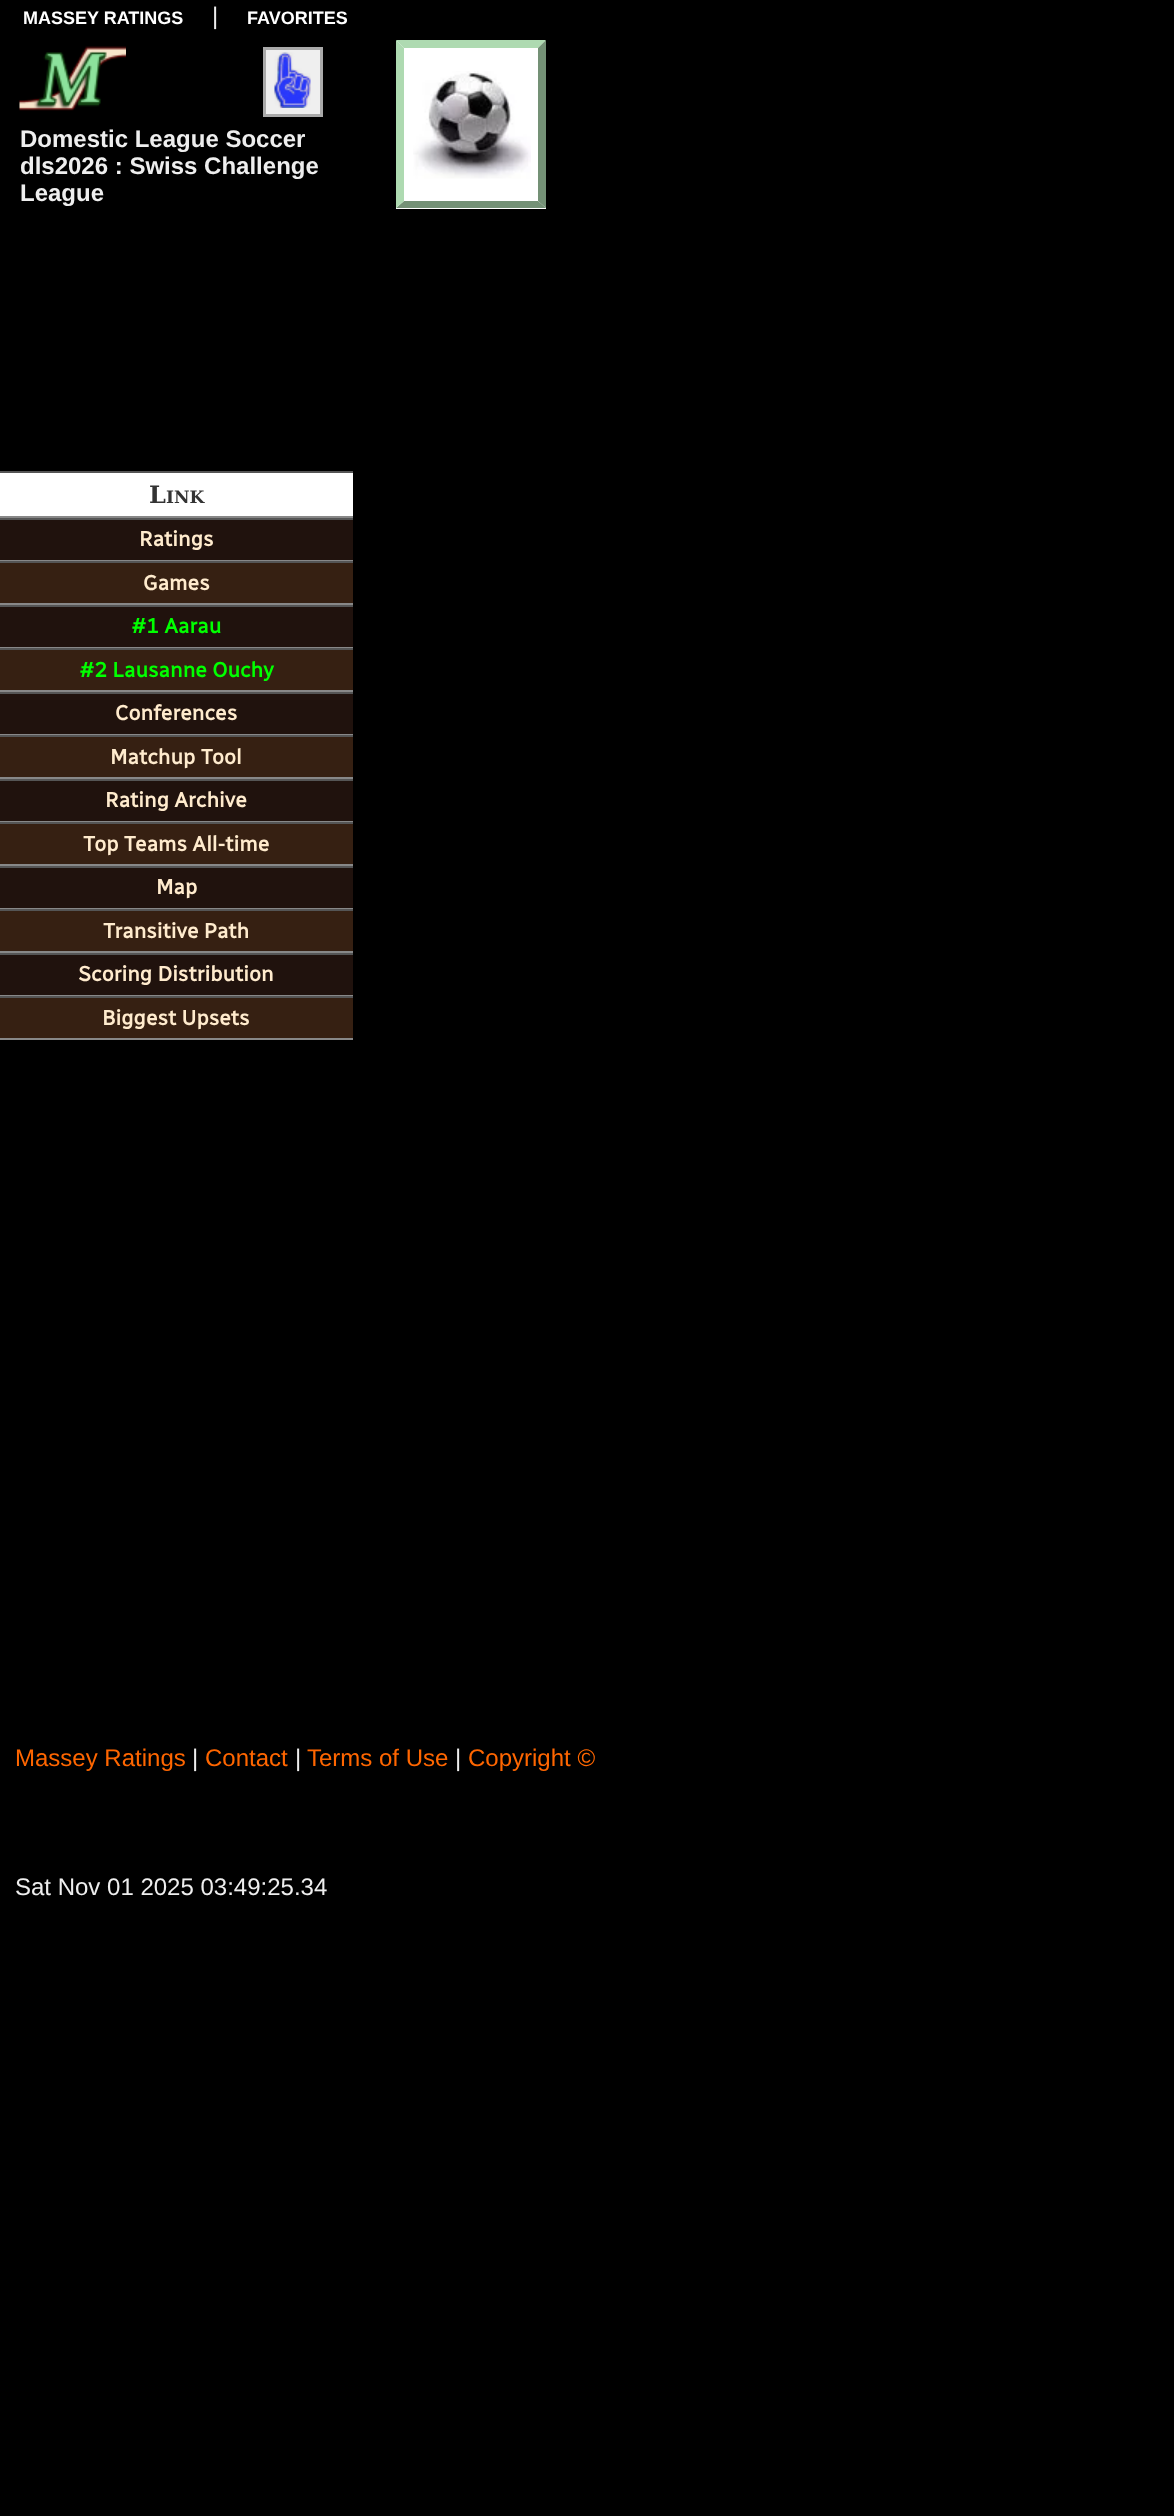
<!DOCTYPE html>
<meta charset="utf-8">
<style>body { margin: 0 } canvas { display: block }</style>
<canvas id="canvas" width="1174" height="2516"></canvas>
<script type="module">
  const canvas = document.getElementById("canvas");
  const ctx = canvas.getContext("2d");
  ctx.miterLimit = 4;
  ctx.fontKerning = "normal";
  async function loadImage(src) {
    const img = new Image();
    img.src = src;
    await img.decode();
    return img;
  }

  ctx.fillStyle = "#000000";
  ctx.fillRect(0, 0, 1174, 2516);
  ctx.font = "bold 18px Liberation Sans";
  ctx.fillStyle = "#ffffff";
  ctx.fillText("MASSEY RATINGS", 23, 24);
  ctx.font = "24px Liberation Sans";
  ctx.fillStyle = "#eeeeee";
  ctx.fillText("|", 212, 24);
  ctx.font = "bold 18px Liberation Sans";
  ctx.fillStyle = "#ffffff";
  ctx.fillText("FAVORITES", 247, 24);
  ctx.drawImage(await loadImage("img1.png"), 19, 46, 107, 65);
  ctx.fillStyle = "#efefef";
  ctx.beginPath();
  ctx.rect(264.5, 48.5, 57, 67);
  ctx.fill();
  ctx.strokeStyle = "#aaaaaa";
  ctx.lineWidth = 3;
  ctx.stroke();
  ctx.drawImage(await loadImage("img2.png"), 274, 52, 37, 56);
  ctx.fillStyle = "#ffffff";
  ctx.fillRect(396, 41, 150, 168);
  ctx.fillStyle = "#aedab1";
  ctx.beginPath();
  ctx.moveTo(396, 40);
  ctx.lineTo(546, 40);
  ctx.lineTo(538, 48);
  ctx.lineTo(404, 48);
  ctx.closePath();
  ctx.fill();
  ctx.fillStyle = "#749176";
  ctx.beginPath();
  ctx.moveTo(546, 40);
  ctx.lineTo(546, 208);
  ctx.lineTo(538, 201);
  ctx.lineTo(538, 48);
  ctx.closePath();
  ctx.fill();
  ctx.beginPath();
  ctx.moveTo(546, 208);
  ctx.lineTo(396, 208);
  ctx.lineTo(404, 201);
  ctx.lineTo(538, 201);
  ctx.closePath();
  ctx.fill();
  ctx.fillStyle = "#aedab1";
  ctx.beginPath();
  ctx.moveTo(396, 208);
  ctx.lineTo(396, 40);
  ctx.lineTo(404, 48);
  ctx.lineTo(404, 201);
  ctx.closePath();
  ctx.fill();
  ctx.drawImage(await loadImage("img3.png"), 413, 71, 118, 108);
  ctx.font = "bold 24px Liberation Sans";
  ctx.fillStyle = "#eeeeee";
  ctx.fillText("Domestic League Soccer", 20, 147);
  ctx.fillText("dls2026 : Swiss Challenge", 20, 174);
  ctx.fillText("League", 20, 201);
  ctx.fillStyle = "#ffffff";
  ctx.fillRect(0, 473, 353, 43);
  ctx.fillStyle = "#555555";
  ctx.fillRect(0, 471, 353, 2);
  ctx.fillStyle = "#888888";
  ctx.fillRect(0, 516, 353, 2);
  ctx.font = "bold 24px DejaVu Serif";
  ctx.fillStyle = "#333333";
  ctx.fillText("L", 149, 503);
  ctx.font = "bold 17px DejaVu Serif";
  ctx.fillText("INK", 166, 503);
  ctx.fillStyle = "#20120d";
  ctx.fillRect(0, 520, 353, 40);
  ctx.fillStyle = "#555555";
  ctx.fillRect(0, 518, 353, 2);
  ctx.fillStyle = "#888888";
  ctx.fillRect(0, 560, 353, 1);
  ctx.font = "bold 21px Radio Canada";
  ctx.fillStyle = "#ffebcd";
  ctx.fillText("Ratings", 139, 546);
  ctx.fillStyle = "#362012";
  ctx.fillRect(0, 563, 353, 40);
  ctx.fillStyle = "#555555";
  ctx.fillRect(0, 561, 353, 2);
  ctx.fillStyle = "#888888";
  ctx.fillRect(0, 603, 353, 2);
  ctx.fillStyle = "#ffebcd";
  ctx.fillText("Games", 143, 590);
  ctx.fillStyle = "#20120d";
  ctx.fillRect(0, 607, 353, 40);
  ctx.fillStyle = "#555555";
  ctx.fillRect(0, 605, 353, 2);
  ctx.fillStyle = "#888888";
  ctx.fillRect(0, 647, 353, 1);
  ctx.fillStyle = "#00ff00";
  ctx.fillText("#1 Aarau", 131, 633);
  ctx.fillStyle = "#362012";
  ctx.fillRect(0, 650, 353, 40);
  ctx.fillStyle = "#555555";
  ctx.fillRect(0, 648, 353, 2);
  ctx.fillStyle = "#888888";
  ctx.fillRect(0, 690, 353, 2);
  ctx.fillStyle = "#00ff00";
  ctx.fillText("#2 Lausanne Ouchy", 79, 677);
  ctx.fillStyle = "#20120d";
  ctx.fillRect(0, 694, 353, 40);
  ctx.fillStyle = "#555555";
  ctx.fillRect(0, 692, 353, 2);
  ctx.fillStyle = "#888888";
  ctx.fillRect(0, 734, 353, 1);
  ctx.fillStyle = "#ffebcd";
  ctx.fillText("Conferences", 115, 720);
  ctx.fillStyle = "#362012";
  ctx.fillRect(0, 737, 353, 40);
  ctx.fillStyle = "#555555";
  ctx.fillRect(0, 735, 353, 2);
  ctx.fillStyle = "#888888";
  ctx.fillRect(0, 777, 353, 2);
  ctx.fillStyle = "#ffebcd";
  ctx.fillText("Matchup Tool", 110, 764);
  ctx.fillStyle = "#20120d";
  ctx.fillRect(0, 781, 353, 40);
  ctx.fillStyle = "#555555";
  ctx.fillRect(0, 779, 353, 2);
  ctx.fillStyle = "#888888";
  ctx.fillRect(0, 821, 353, 1);
  ctx.fillStyle = "#ffebcd";
  ctx.fillText("Rating Archive", 105, 807);
  ctx.fillStyle = "#362012";
  ctx.fillRect(0, 824, 353, 40);
  ctx.fillStyle = "#555555";
  ctx.fillRect(0, 822, 353, 2);
  ctx.fillStyle = "#888888";
  ctx.fillRect(0, 864, 353, 2);
  ctx.fillStyle = "#ffebcd";
  ctx.fillText("Top Teams All-time", 83, 851);
  ctx.fillStyle = "#20120d";
  ctx.fillRect(0, 868, 353, 40);
  ctx.fillStyle = "#555555";
  ctx.fillRect(0, 866, 353, 2);
  ctx.fillStyle = "#888888";
  ctx.fillRect(0, 908, 353, 1);
  ctx.fillStyle = "#ffebcd";
  ctx.fillText("Map", 156, 894);
  ctx.fillStyle = "#362012";
  ctx.fillRect(0, 911, 353, 40);
  ctx.fillStyle = "#555555";
  ctx.fillRect(0, 909, 353, 2);
  ctx.fillStyle = "#888888";
  ctx.fillRect(0, 951, 353, 2);
  ctx.fillStyle = "#ffebcd";
  ctx.fillText("Transitive Path", 103, 938);
  ctx.fillStyle = "#20120d";
  ctx.fillRect(0, 955, 353, 40);
  ctx.fillStyle = "#555555";
  ctx.fillRect(0, 953, 353, 2);
  ctx.fillStyle = "#888888";
  ctx.fillRect(0, 995, 353, 1);
  ctx.fillStyle = "#ffebcd";
  ctx.fillText("Scoring Distribution", 78, 981);
  ctx.fillStyle = "#362012";
  ctx.fillRect(0, 998, 353, 40);
  ctx.fillStyle = "#555555";
  ctx.fillRect(0, 996, 353, 2);
  ctx.fillStyle = "#888888";
  ctx.fillRect(0, 1038, 353, 2);
  ctx.fillStyle = "#ffebcd";
  ctx.fillText("Biggest Upsets", 102, 1025);
  ctx.font = "24px Liberation Sans";
  ctx.fillStyle = "#ff6600";
  ctx.fillText("Massey Ratings", 15, 1766);
  ctx.fillStyle = "#eeeeee";
  ctx.fillText("|", 192, 1766);
  ctx.fillStyle = "#ff6600";
  ctx.fillText("Contact", 205, 1766);
  ctx.fillStyle = "#eeeeee";
  ctx.fillText("|", 295, 1766);
  ctx.fillStyle = "#ff6600";
  ctx.fillText("Terms of Use", 307, 1766);
  ctx.fillStyle = "#eeeeee";
  ctx.fillText("|", 455, 1766);
  ctx.fillStyle = "#ff6600";
  ctx.fillText("Copyright ©", 468, 1766);
  ctx.fillStyle = "#eeeeee";
  ctx.fillText("Sat Nov 01 2025 03:49:25.34", 15, 1895);
</script>
